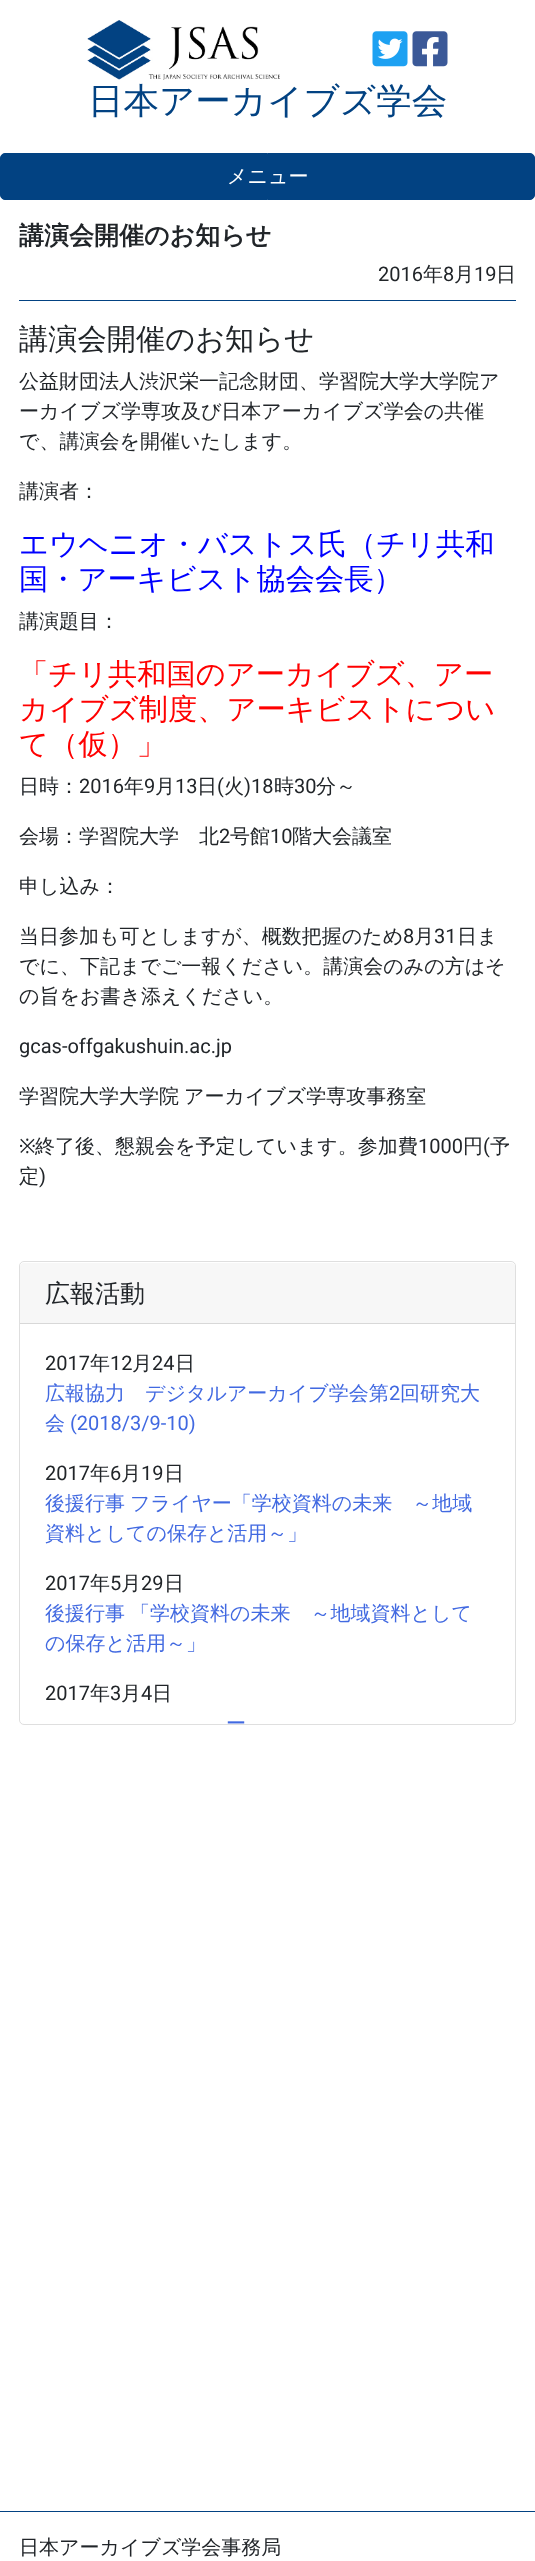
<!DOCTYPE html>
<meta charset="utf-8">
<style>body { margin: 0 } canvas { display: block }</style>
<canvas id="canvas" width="535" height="2561"></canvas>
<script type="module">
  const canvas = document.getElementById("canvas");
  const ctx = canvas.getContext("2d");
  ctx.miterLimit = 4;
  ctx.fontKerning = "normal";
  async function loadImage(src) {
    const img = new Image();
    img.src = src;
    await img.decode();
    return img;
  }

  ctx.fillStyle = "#ffffff";
  ctx.fillRect(0, 0, 535, 2561);
  ctx.drawImage(await loadImage("img1.png"), 87, 20, 193, 60);
  ctx.drawImage(await loadImage("img2.png"), 372, 31, 36, 36);
  ctx.drawImage(await loadImage("img3.png"), 412, 31, 36, 36);
  ctx.font = "500 35.5px WenQuanYi Zen Hei";
  ctx.fillStyle = "#024282";
  ctx.fillText("日本アーカイブズ学会", 88, 113);
  ctx.beginPath();
  ctx.roundRect(0.5, 153.5, 534, 46, 4.5);
  ctx.fill();
  ctx.strokeStyle = "#024282";
  ctx.stroke();
  ctx.font = "500 20px WenQuanYi Zen Hei";
  ctx.fillStyle = "#ffffff";
  ctx.fillText("メニュー", 227, 183);
  ctx.fillStyle = "#024282";
  ctx.fillRect(19, 300, 497, 1);
  ctx.font = "bold 25px WenQuanYi Zen Hei";
  ctx.fillStyle = "#212529";
  ctx.fillText("講演会開催のお知らせ", 19, 244);
  ctx.font = "20px Roboto";
  ctx.fillText("2016", 378, 281);
  ctx.font = "500 20px WenQuanYi Zen Hei";
  ctx.fillText("年", 423, 281);
  ctx.font = "20px Roboto";
  ctx.fillText("8", 443, 281);
  ctx.font = "500 20px WenQuanYi Zen Hei";
  ctx.fillText("月", 454, 281);
  ctx.font = "20px Roboto";
  ctx.fillText("19", 474, 281);
  ctx.font = "500 20px WenQuanYi Zen Hei";
  ctx.fillText("日", 496, 281);
  ctx.font = "500 29.25px WenQuanYi Zen Hei";
  ctx.fillText("講演会開催のお知らせ", 19, 349);
  ctx.font = "500 20px WenQuanYi Zen Hei";
  ctx.fillText("公益財団法人渋沢栄一記念財団、学習院大学大学院ア", 19, 388);
  ctx.fillText("ーカイブズ学専攻及び日本アーカイブズ学会の共催", 19, 418);
  ctx.fillText("で、講演会を開催いたします。", 19, 448);
  ctx.fillText("講演者：", 19, 498);
  ctx.font = "500 29.25px WenQuanYi Zen Hei";
  ctx.fillStyle = "#0000ff";
  ctx.fillText("エウヘニオ・バストス氏（チリ共和", 19, 554);
  ctx.fillText("国・アーキビスト協会会長）", 19, 589);
  ctx.font = "500 20px WenQuanYi Zen Hei";
  ctx.fillStyle = "#212529";
  ctx.fillText("講演題目：", 19, 628);
  ctx.font = "500 29.25px WenQuanYi Zen Hei";
  ctx.fillStyle = "#ff0000";
  ctx.fillText("「チリ共和国のアーカイブズ、アー", 19, 684);
  ctx.fillText("カイブズ制度、アーキビストについ", 19, 719);
  ctx.fillText("て（仮）」", 19, 754);
  ctx.font = "500 20px WenQuanYi Zen Hei";
  ctx.fillStyle = "#212529";
  ctx.fillText("日時：", 19, 793);
  ctx.font = "20px Roboto";
  ctx.fillText("2016", 79, 793);
  ctx.font = "500 20px WenQuanYi Zen Hei";
  ctx.fillText("年", 124, 793);
  ctx.font = "20px Roboto";
  ctx.fillText("9", 144, 793);
  ctx.font = "500 20px WenQuanYi Zen Hei";
  ctx.fillText("月", 155, 793);
  ctx.font = "20px Roboto";
  ctx.fillText("13", 175, 793);
  ctx.font = "500 20px WenQuanYi Zen Hei";
  ctx.fillText("日", 197, 793);
  ctx.font = "20px Roboto";
  ctx.fillText("(", 217, 793);
  ctx.font = "500 20px WenQuanYi Zen Hei";
  ctx.fillText("火", 224, 793);
  ctx.font = "20px Roboto";
  ctx.fillText(")18", 244, 793);
  ctx.font = "500 20px WenQuanYi Zen Hei";
  ctx.fillText("時", 274, 793);
  ctx.font = "20px Roboto";
  ctx.fillText("30", 294, 793);
  ctx.font = "500 20px WenQuanYi Zen Hei";
  ctx.fillText("分～", 316, 793);
  ctx.fillText("会場：学習院大学　北", 19, 843);
  ctx.font = "20px Roboto";
  ctx.fillText("2", 219, 843);
  ctx.font = "500 20px WenQuanYi Zen Hei";
  ctx.fillText("号館", 230, 843);
  ctx.font = "20px Roboto";
  ctx.fillText("10", 270, 843);
  ctx.font = "500 20px WenQuanYi Zen Hei";
  ctx.fillText("階大会議室", 292, 843);
  ctx.fillText("申し込み：", 19, 893);
  ctx.fillText("当日参加も可としますが、概数把握のため", 19, 943);
  ctx.font = "20px Roboto";
  ctx.fillText("8", 403, 943);
  ctx.font = "500 20px WenQuanYi Zen Hei";
  ctx.fillText("月", 414, 943);
  ctx.font = "20px Roboto";
  ctx.fillText("31", 434, 943);
  ctx.font = "500 20px WenQuanYi Zen Hei";
  ctx.fillText("日ま", 457, 943);
  ctx.fillText("でに、下記までご一報ください。講演会のみの方はそ", 19, 973);
  ctx.fillText("の旨をお書き添えください。", 19, 1003);
  ctx.font = "20px Roboto";
  ctx.fillText("gcas-offgakushuin.ac.jp", 19, 1053);
  ctx.wordSpacing = "-1px";
  ctx.font = "500 20px WenQuanYi Zen Hei";
  ctx.fillText("学習院大学大学院 アーカイブズ学専攻事務室", 19, 1103);
  ctx.wordSpacing = "0px";
  ctx.font = "20px Noto Sans";
  ctx.fillText("※", 19, 1153);
  ctx.font = "500 20px WenQuanYi Zen Hei";
  ctx.fillText("終了後、懇親会を予定しています。参加費", 35, 1153);
  ctx.font = "20px Roboto";
  ctx.fillText("1000", 418, 1153);
  ctx.font = "500 20px WenQuanYi Zen Hei";
  ctx.fillText("円", 463, 1153);
  ctx.font = "20px Roboto";
  ctx.fillText("(", 483, 1153);
  ctx.font = "500 20px WenQuanYi Zen Hei";
  ctx.fillText("予", 490, 1153);
  ctx.fillText("定", 19, 1183);
  ctx.font = "20px Roboto";
  ctx.fillText(")", 39, 1183);
  ctx.beginPath();
  ctx.roundRect(19.5, 1261.5, 496, 463, 4.5);
  ctx.strokeStyle = "#dfdfdf";
  ctx.stroke();
  ctx.fillStyle = "#f7f7f7";
  ctx.beginPath();
  ctx.roundRect(20, 1263, 495, 61, [4, 4, 0, 0]);
  ctx.fill();
  ctx.fillStyle = "#d8d8d8";
  ctx.fillRect(20, 1323, 495, 1);
  ctx.font = "500 25px WenQuanYi Zen Hei";
  ctx.fillStyle = "#212529";
  ctx.fillText("広報活動", 45, 1302);
  ctx.font = "20px Roboto";
  ctx.fillText("2017", 45, 1370);
  ctx.font = "500 20px WenQuanYi Zen Hei";
  ctx.fillText("年", 90, 1370);
  ctx.font = "20px Roboto";
  ctx.fillText("12", 110, 1370);
  ctx.font = "500 20px WenQuanYi Zen Hei";
  ctx.fillText("月", 132, 1370);
  ctx.font = "20px Roboto";
  ctx.fillText("24", 152, 1370);
  ctx.font = "500 20px WenQuanYi Zen Hei";
  ctx.fillText("日", 175, 1370);
  ctx.fillStyle = "#4169e1";
  ctx.fillText("広報協力　デジタルアーカイブ学会第", 45, 1400);
  ctx.font = "20px Roboto";
  ctx.fillText("2", 389, 1400);
  ctx.font = "500 20px WenQuanYi Zen Hei";
  ctx.fillText("回研究大", 400, 1400);
  ctx.fillText("会", 45, 1430);
  ctx.font = "20px Roboto";
  ctx.fillText("(2018/3/9-10)", 70, 1430);
  ctx.fillStyle = "#212529";
  ctx.fillText("2017", 45, 1480);
  ctx.font = "500 20px WenQuanYi Zen Hei";
  ctx.fillText("年", 90, 1480);
  ctx.font = "20px Roboto";
  ctx.fillText("6", 110, 1480);
  ctx.font = "500 20px WenQuanYi Zen Hei";
  ctx.fillText("月", 121, 1480);
  ctx.font = "20px Roboto";
  ctx.fillText("19", 141, 1480);
  ctx.font = "500 20px WenQuanYi Zen Hei";
  ctx.fillText("日", 164, 1480);
  ctx.wordSpacing = "-1px";
  ctx.fillStyle = "#4169e1";
  ctx.fillText("後援行事 フライヤー「学校資料の未来　～地域", 45, 1510);
  ctx.wordSpacing = "0px";
  ctx.fillText("資料としての保存と活用～」", 45, 1540);
  ctx.font = "20px Roboto";
  ctx.fillStyle = "#212529";
  ctx.fillText("2017", 45, 1590);
  ctx.font = "500 20px WenQuanYi Zen Hei";
  ctx.fillText("年", 90, 1590);
  ctx.font = "20px Roboto";
  ctx.fillText("5", 110, 1590);
  ctx.font = "500 20px WenQuanYi Zen Hei";
  ctx.fillText("月", 121, 1590);
  ctx.font = "20px Roboto";
  ctx.fillText("29", 141, 1590);
  ctx.font = "500 20px WenQuanYi Zen Hei";
  ctx.fillText("日", 164, 1590);
  ctx.wordSpacing = "-1px";
  ctx.fillStyle = "#4169e1";
  ctx.fillText("後援行事 「学校資料の未来　～地域資料として", 45, 1620);
  ctx.wordSpacing = "0px";
  ctx.fillText("の保存と活用～」", 45, 1650);
  ctx.font = "20px Roboto";
  ctx.fillStyle = "#212529";
  ctx.fillText("2017", 45, 1700);
  ctx.font = "500 20px WenQuanYi Zen Hei";
  ctx.fillText("年", 90, 1700);
  ctx.font = "20px Roboto";
  ctx.fillText("3", 110, 1700);
  ctx.font = "500 20px WenQuanYi Zen Hei";
  ctx.fillText("月", 121, 1700);
  ctx.font = "20px Roboto";
  ctx.fillText("4", 141, 1700);
  ctx.font = "500 20px WenQuanYi Zen Hei";
  ctx.fillText("日", 152, 1700);
  ctx.fillStyle = "#4169e1";
  ctx.fillText("ー", 226, 1730);
  ctx.fillStyle = "#024282";
  ctx.fillRect(0, 2511, 535, 1);
  ctx.fillStyle = "#212529";
  ctx.fillText("日本アーカイブズ学会事務局", 19, 2554);
</script>
